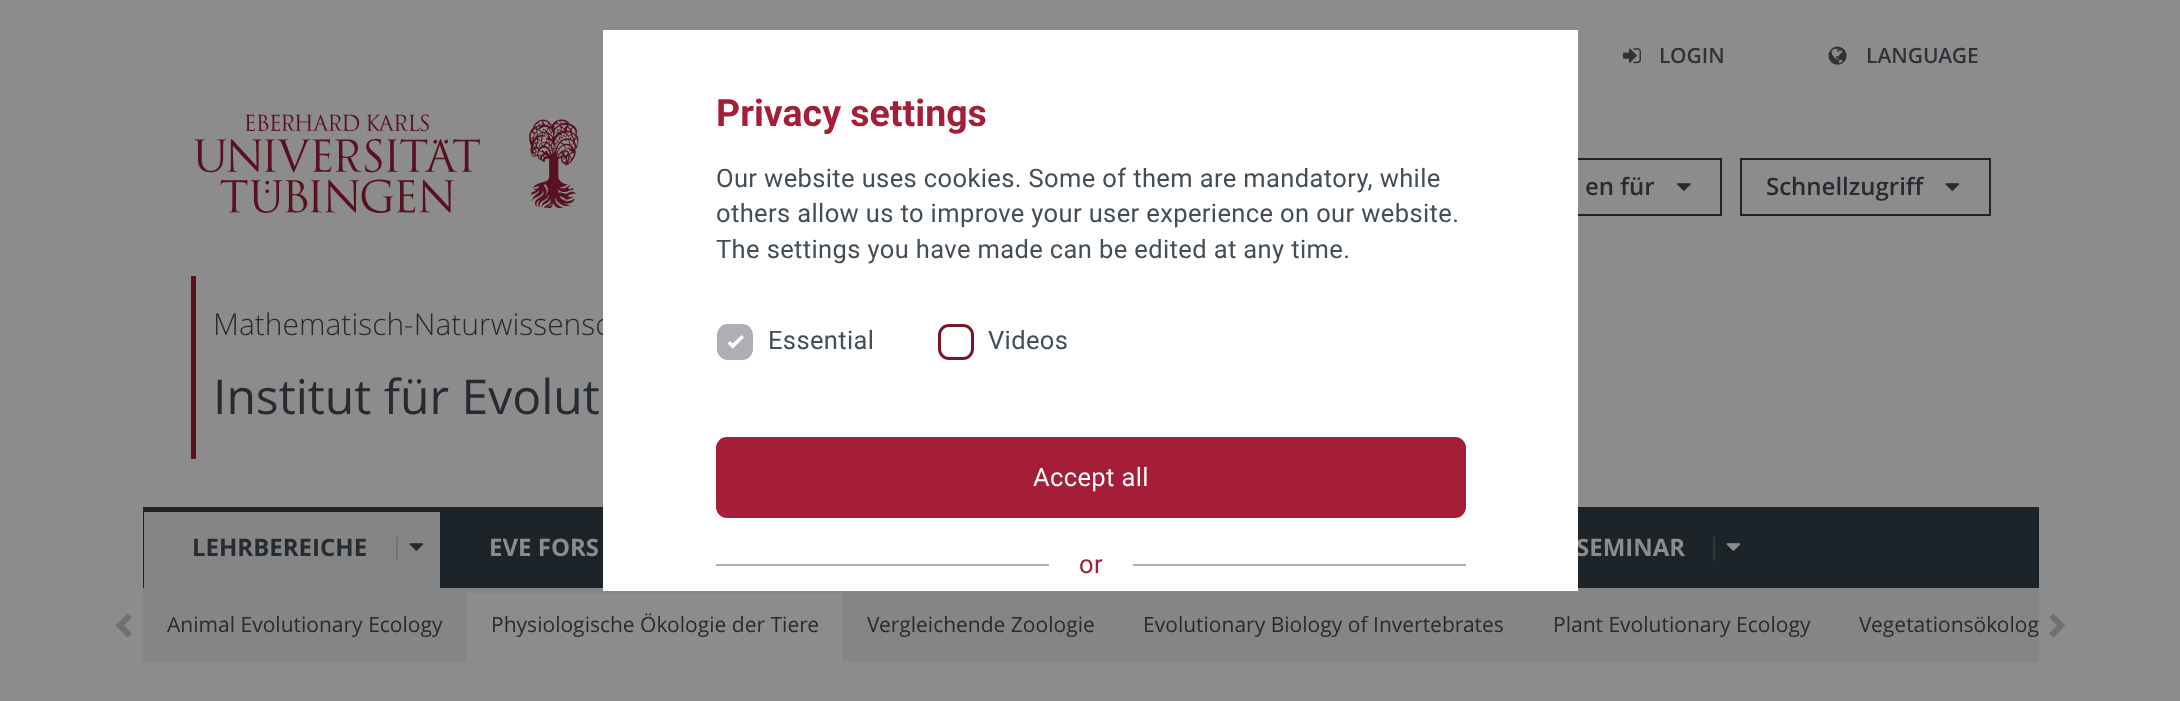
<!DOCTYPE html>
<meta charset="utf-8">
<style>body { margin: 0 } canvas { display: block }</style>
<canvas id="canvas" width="2180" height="701"></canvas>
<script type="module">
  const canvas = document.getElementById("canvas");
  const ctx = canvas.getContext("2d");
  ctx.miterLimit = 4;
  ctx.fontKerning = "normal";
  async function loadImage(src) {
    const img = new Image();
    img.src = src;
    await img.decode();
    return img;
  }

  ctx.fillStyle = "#8c8c8c";
  ctx.fillRect(0, 0, 2180, 701);
  ctx.drawImage(await loadImage("img1.png"), 1623, 48, 18, 16);
  ctx.font = "600 21px Open Sans";
  ctx.fillStyle = "#2f3338";
  ctx.fillText("LOGIN", 1659, 63);
  ctx.drawImage(await loadImage("img2.png"), 1828, 46, 19, 19);
  ctx.fillText("LANGUAGE", 1866, 63);
  ctx.drawImage(await loadImage("img3.png"), 194, 114, 385, 99);
  ctx.strokeStyle = "#1c2429";
  ctx.lineWidth = 2;
  ctx.strokeRect(1422, 159, 299, 56);
  ctx.font = "600 24px Open Sans";
  ctx.fillStyle = "#252b30";
  ctx.fillText("en für", 1585, 195);
  ctx.drawImage(await loadImage("img4.png"), 1677, 183, 14, 8);
  ctx.strokeRect(1741, 159, 249, 56);
  ctx.fillText("Schnellzugriff", 1766, 195);
  ctx.drawImage(await loadImage("img5.png"), 1945, 183, 15, 8);
  ctx.fillStyle = "#5b111e";
  ctx.fillRect(191, 276, 5, 183);
  ctx.font = "300 30px Open Sans";
  ctx.fillStyle = "#252b30";
  ctx.fillText("Mathematisch-Naturwissensc", 213, 335);
  ctx.font = "48px Open Sans";
  ctx.fillText("Institut für Evolut", 213, 414);
  ctx.fillStyle = "#1c2429";
  ctx.fillRect(143, 507, 1896, 81);
  ctx.fillStyle = "#858585";
  ctx.fillRect(144, 512, 296, 76);
  ctx.font = "bold 24px Open Sans";
  ctx.fillStyle = "#252b30";
  ctx.fillText("LEHRBEREICHE", 192, 556);
  ctx.fillStyle = "#727374";
  ctx.fillRect(396, 537, 2, 24);
  ctx.drawImage(await loadImage("img6.png"), 409, 543, 15, 8);
  ctx.fillStyle = "#8c8c8c";
  ctx.fillText("EVE FORS", 489, 556);
  ctx.fillText("SEMINAR", 1576, 556);
  ctx.fillStyle = "#32393d";
  ctx.fillRect(1713, 537, 2, 24);
  ctx.drawImage(await loadImage("img7.png"), 1726, 543, 15, 8);
  ctx.fillStyle = "#858585";
  ctx.fillRect(143, 588, 1896, 74);
  ctx.fillStyle = "#707070";
  ctx.beginPath();
  ctx.moveTo(127.5, 613.5);
  ctx.lineTo(132, 617.5);
  ctx.lineTo(124, 625.5);
  ctx.lineTo(132, 633.5);
  ctx.lineTo(127.5, 637.5);
  ctx.lineTo(115.5, 625.5);
  ctx.closePath();
  ctx.fill();
  ctx.font = "21px Open Sans";
  ctx.fillStyle = "#252b30";
  ctx.fillText("Animal Evolutionary Ecology", 167, 632);
  ctx.fillStyle = "#8c8c8c";
  ctx.fillRect(467, 593, 376, 69);
  ctx.fillStyle = "#252b30";
  ctx.fillText("Physiologische Ökologie der Tiere", 491, 632);
  ctx.fillText("Vergleichende Zoologie", 867, 632);
  ctx.fillText("Evolutionary Biology of Invertebrates", 1143, 632);
  ctx.fillText("Plant Evolutionary Ecology", 1553, 632);
  ctx.fillText("Vegetationsökolog", 1859, 632);
  ctx.fillStyle = "#707070";
  ctx.beginPath();
  ctx.moveTo(2053.5, 637.5);
  ctx.lineTo(2049, 633.5);
  ctx.lineTo(2057, 625.5);
  ctx.lineTo(2049, 617.5);
  ctx.lineTo(2053.5, 613.5);
  ctx.lineTo(2065.5, 625.5);
  ctx.closePath();
  ctx.fill();
  ctx.fillStyle = "#ffffff";
  ctx.fillRect(603, 30, 975, 561);
  ctx.font = "bold 37.5px Roboto";
  ctx.fillStyle = "#a51e37";
  ctx.fillText("Privacy settings", 716, 126);
  ctx.letterSpacing = "0.38px";
  ctx.font = "25.5px Roboto";
  ctx.fillStyle = "#444e57";
  ctx.fillText("Our website uses cookies. Some of them are mandatory, while", 716, 187);
  ctx.fillText("others allow us to improve your user experience on our website.", 716, 222);
  ctx.fillText("The settings you have made can be edited at any time.", 716, 258);
  ctx.fillStyle = "#adafb5";
  ctx.beginPath();
  ctx.roundRect(718.5, 325.5, 33, 33, 9.5);
  ctx.fill();
  ctx.strokeStyle = "#adafb5";
  ctx.lineWidth = 3;
  ctx.stroke();
  ctx.fillStyle = "#444e57";
  ctx.fillText("Essential", 768, 349);
  ctx.fillStyle = "#ffffff";
  ctx.beginPath();
  ctx.moveTo(730, 346);
  ctx.lineTo(741.5, 335);
  ctx.lineTo(744, 337.5);
  ctx.lineTo(733, 348.5);
  ctx.closePath();
  ctx.fill();
  ctx.beginPath();
  ctx.moveTo(727.5, 343.5);
  ctx.lineTo(730, 341);
  ctx.lineTo(735.5, 346);
  ctx.lineTo(733, 348.5);
  ctx.closePath();
  ctx.fill();
  ctx.beginPath();
  ctx.roundRect(939.5, 325.5, 33, 33, 9.5);
  ctx.strokeStyle = "#7a1629";
  ctx.stroke();
  ctx.fillStyle = "#444e57";
  ctx.fillText("Videos", 988, 349);
  ctx.fillStyle = "#a51e37";
  ctx.beginPath();
  ctx.roundRect(716, 437, 750, 81, 11);
  ctx.fill();
  ctx.fillStyle = "#ffffff";
  ctx.fillText("Accept all", 1033, 486);
  ctx.fillStyle = "#adafb5";
  ctx.fillRect(716, 564, 333, 2);
  ctx.fillStyle = "#a51e37";
  ctx.fillText("or", 1079, 573);
  ctx.fillStyle = "#adafb5";
  ctx.fillRect(1133, 564, 333, 2);
</script>
